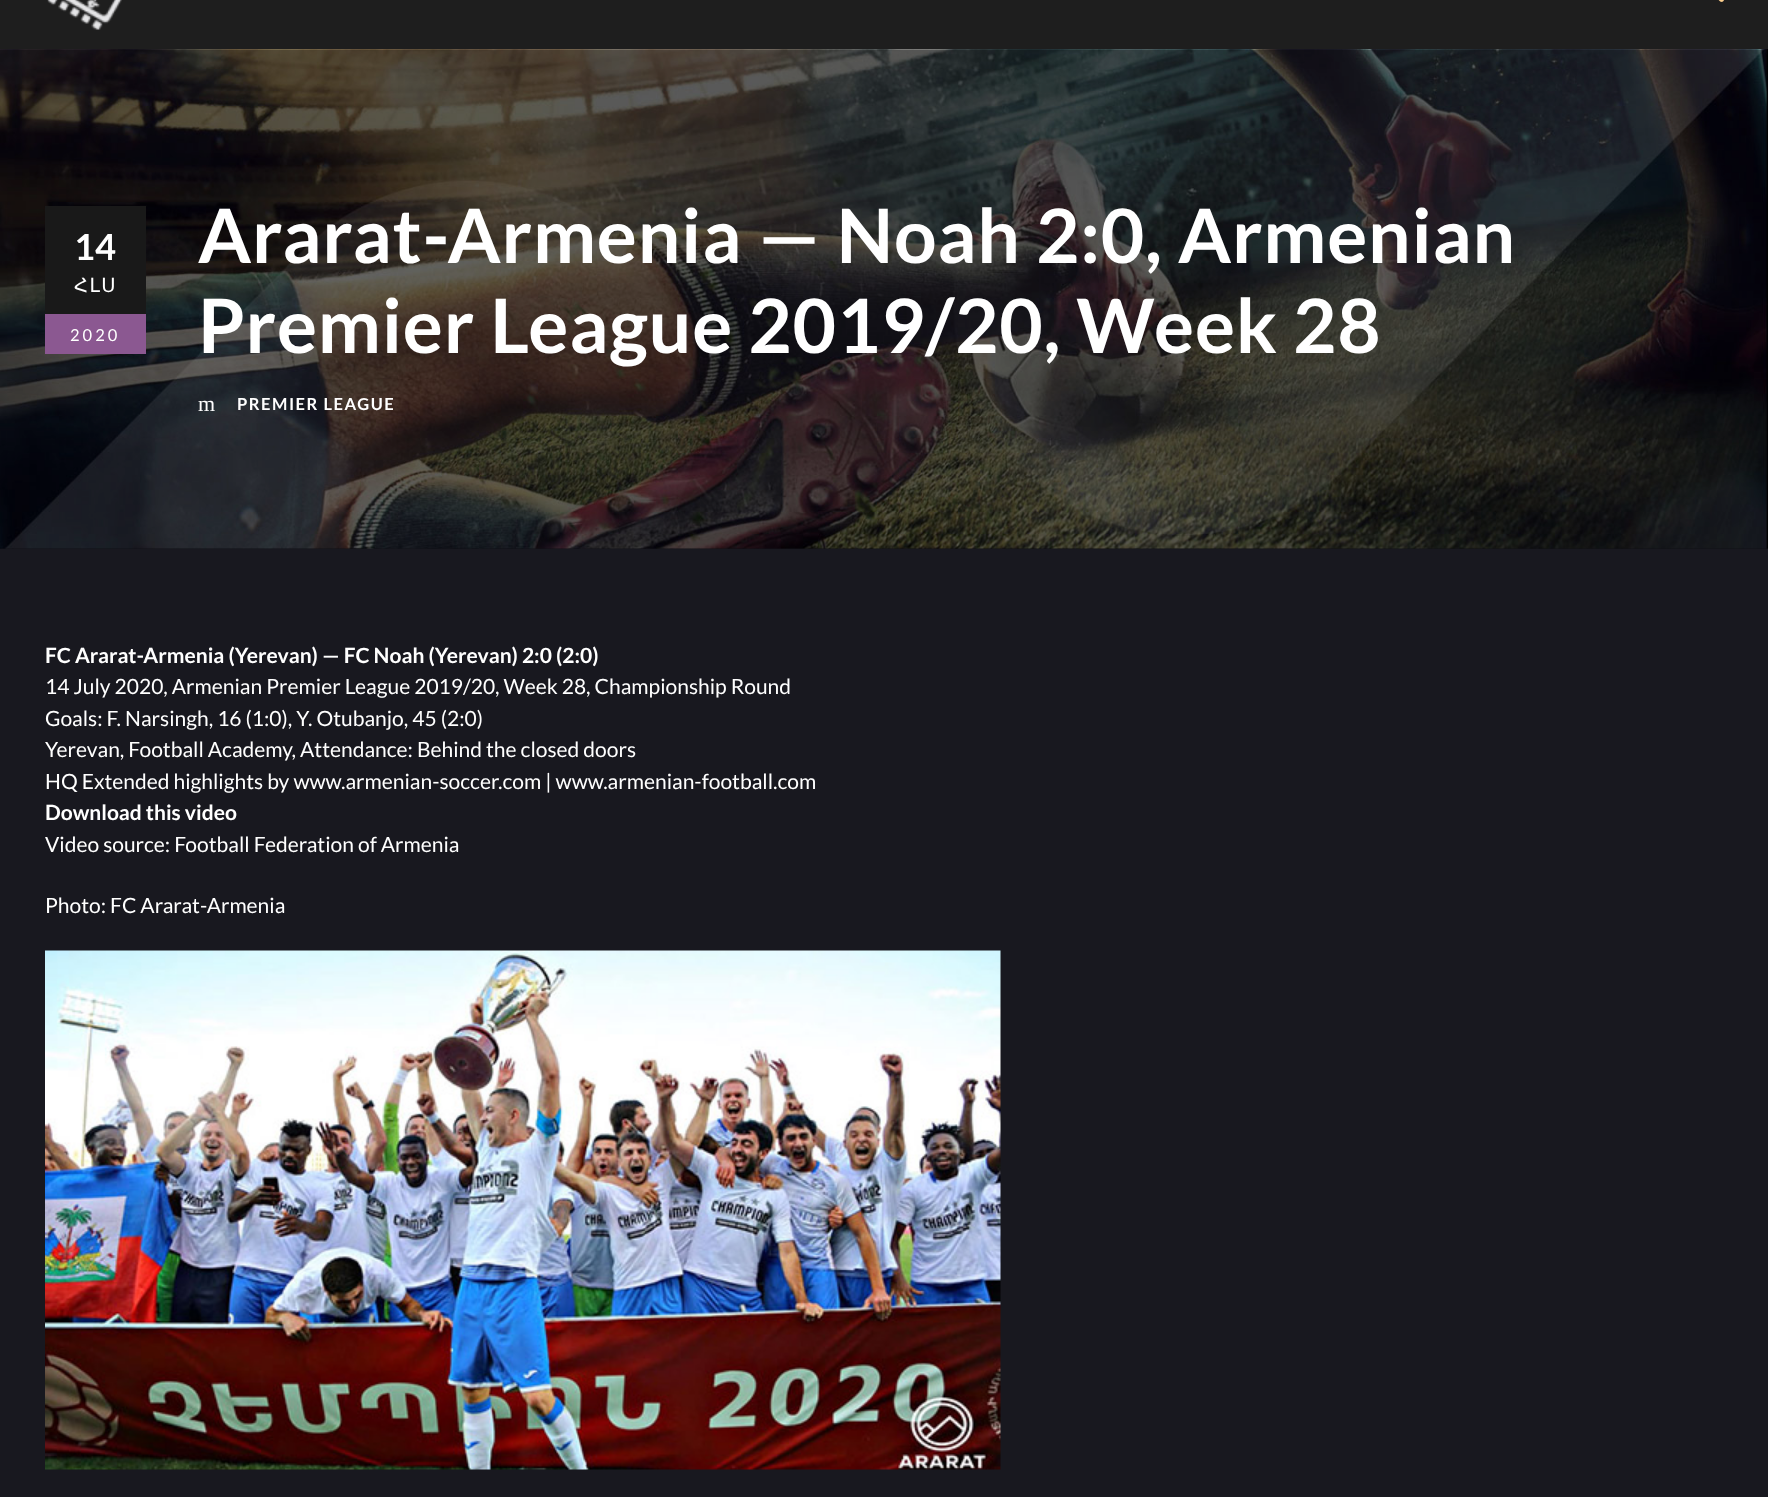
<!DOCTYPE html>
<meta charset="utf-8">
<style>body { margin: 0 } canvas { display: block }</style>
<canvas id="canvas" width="1768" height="1497"></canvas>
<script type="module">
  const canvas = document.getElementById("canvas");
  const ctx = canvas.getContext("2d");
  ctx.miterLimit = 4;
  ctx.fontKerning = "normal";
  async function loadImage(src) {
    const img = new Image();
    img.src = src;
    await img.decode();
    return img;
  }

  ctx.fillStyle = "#18181f";
  ctx.fillRect(0, 0, 1768, 1497);
  ctx.fillStyle = "#111116";
  ctx.fillRect(0, 548, 1768, 1);
  ctx.fillStyle = "#1e1e1e";
  ctx.fillRect(0, 0, 1768, 49);
  ctx.drawImage(await loadImage("img1.png"), 47, 0, 75, 30);
  ctx.drawImage(await loadImage("img2.png"), 1718, 0, 6, 2);
  ctx.drawImage(await loadImage("img3.png"), 0, 49, 1768, 500);
  ctx.fillStyle = "#191919";
  ctx.fillRect(45, 206, 101, 108);
  ctx.font = "bold 36px Lato";
  ctx.fillStyle = "#ffffff";
  ctx.fillText("14", 74, 260);
  ctx.letterSpacing = "1.5px";
  ctx.font = "19.5px DejaVu Sans";
  ctx.fillText("ՀԼՍ", 74, 292);
  ctx.fillStyle = "#8b5891";
  ctx.fillRect(45, 314, 101, 40);
  ctx.letterSpacing = "3px";
  ctx.font = "16.5px Lato";
  ctx.fillStyle = "#ffffff";
  ctx.fillText("2020", 70, 341);
  ctx.letterSpacing = "0.75px";
  ctx.font = "bold 75px Lato";
  ctx.fillText("Ararat-Armenia — Noah 2:0, Armenian", 198, 263);
  ctx.fillText("Premier League 2019/20, Week 28", 198, 353);
  ctx.letterSpacing = "1.5px";
  ctx.font = "22px Liberation Serif";
  ctx.fillText("m", 198, 411);
  ctx.font = "bold 16.5px Lato";
  ctx.fillText("PREMIER LEAGUE", 237, 410);
  ctx.letterSpacing = "0px";
  ctx.font = "bold 21px Lato";
  ctx.fillText("FC Ararat-Armenia (Yerevan) — FC Noah (Yerevan) 2:0 (2:0)", 45, 663);
  ctx.font = "21px Lato";
  ctx.fillText("14 July 2020, Armenian Premier League 2019/20, Week 28, Championship Round", 45, 694);
  ctx.fillText("Goals: F. Narsingh, 16 (1:0), Y. Otubanjo, 45 (2:0)", 45, 726);
  ctx.fillText("Yerevan, Football Academy, Attendance: Behind the closed doors", 45, 757);
  ctx.fillText("HQ Extended highlights by www.armenian-soccer.com | www.armenian-football.com", 45, 789);
  ctx.font = "bold 21px Lato";
  ctx.fillText("Download this video", 45, 820);
  ctx.font = "21px Lato";
  ctx.fillText("Video source: Football Federation of Armenia", 45, 852);
  ctx.fillText("Photo: FC Ararat-Armenia", 45, 913);
  ctx.drawImage(await loadImage("img4.png"), 45, 950, 956, 520);
</script>
